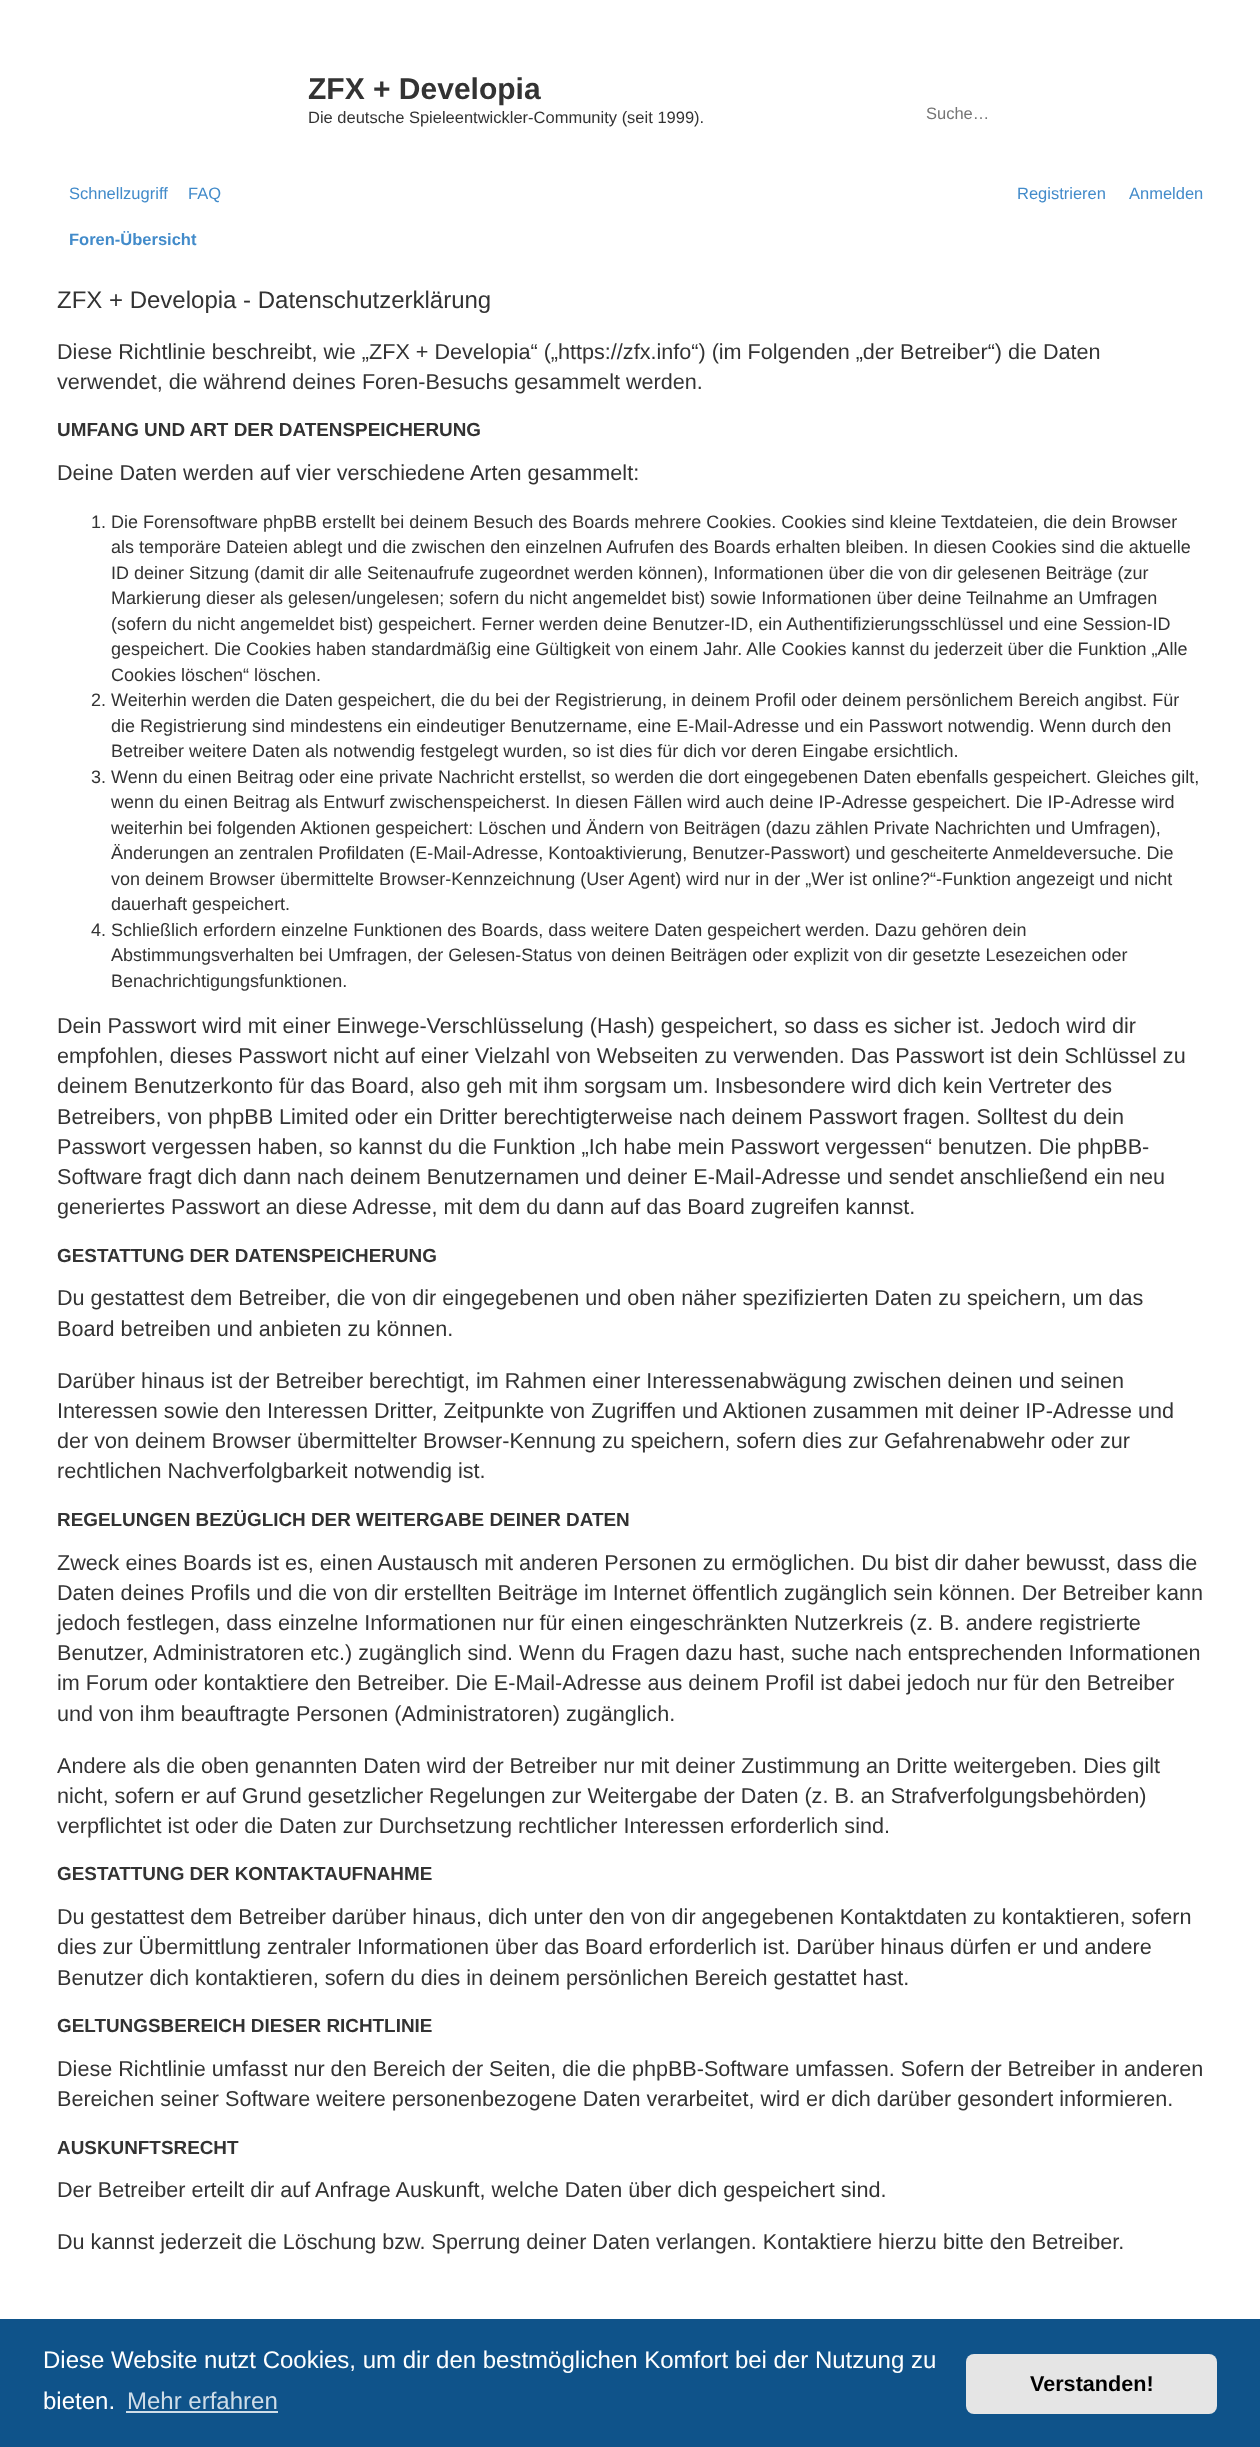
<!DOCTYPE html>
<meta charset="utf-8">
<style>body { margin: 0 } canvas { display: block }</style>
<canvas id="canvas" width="1260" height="2447"></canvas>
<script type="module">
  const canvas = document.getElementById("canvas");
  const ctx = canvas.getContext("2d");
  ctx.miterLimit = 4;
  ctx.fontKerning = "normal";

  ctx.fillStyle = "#ffffff";
  ctx.fillRect(0, 0, 1260, 2447);
  ctx.font = "bold 30px Liberation Sans";
  ctx.fillStyle = "#333333";
  ctx.fillText("ZFX + Developia", 308, 99);
  ctx.font = "16.5px Liberation Sans";
  ctx.fillText("Die deutsche Spieleentwickler-Community (seit 1999).", 308, 123);
  ctx.fillStyle = "#757575";
  ctx.fillText("Suche…", 926, 119);
  ctx.fillStyle = "#428bca";
  ctx.fillText("Schnellzugriff", 69, 199);
  ctx.fillText("FAQ", 188, 199);
  ctx.fillText("Registrieren", 1017, 199);
  ctx.fillText("Anmelden", 1129, 199);
  ctx.font = "bold 16.5px Liberation Sans";
  ctx.fillText("Foren-Übersicht", 69, 245);
  ctx.font = "24px Liberation Sans";
  ctx.fillStyle = "#333333";
  ctx.fillText("ZFX + Developia - Datenschutzerklärung", 57, 308);
  ctx.font = "21.6px Liberation Sans";
  ctx.fillText("Diese Richtlinie beschreibt, wie „ZFX + Developia“ („https://zfx.info“) (im Folgenden „der Betreiber“) die Daten", 57, 359);
  ctx.fillText("verwendet, die während deines Foren-Besuchs gesammelt werden.", 57, 389);
  ctx.font = "bold 18.9px Liberation Sans";
  ctx.fillText("UMFANG UND ART DER DATENSPEICHERUNG", 57, 436);
  ctx.font = "21.6px Liberation Sans";
  ctx.fillText("Deine Daten werden auf vier verschiedene Arten gesammelt:", 57, 480);
  ctx.font = "18px Liberation Sans";
  ctx.fillText("1. Die Forensoftware phpBB erstellt bei deinem Besuch des Boards mehrere Cookies. Cookies sind kleine Textdateien, die dein Browser", 91, 528);
  ctx.fillText("als temporäre Dateien ablegt und die zwischen den einzelnen Aufrufen des Boards erhalten bleiben. In diesen Cookies sind die aktuelle", 111, 553);
  ctx.fillText("ID deiner Sitzung (damit dir alle Seitenaufrufe zugeordnet werden können), Informationen über die von dir gelesenen Beiträge (zur", 111, 579);
  ctx.fillText("Markierung dieser als gelesen/ungelesen; sofern du nicht angemeldet bist) sowie Informationen über deine Teilnahme an Umfragen", 111, 604);
  ctx.fillText("(sofern du nicht angemeldet bist) gespeichert. Ferner werden deine Benutzer-ID, ein Authentifizierungsschlüssel und eine Session-ID", 111, 630);
  ctx.fillText("gespeichert. Die Cookies haben standardmäßig eine Gültigkeit von einem Jahr. Alle Cookies kannst du jederzeit über die Funktion „Alle", 111, 655);
  ctx.fillText("Cookies löschen“ löschen.", 111, 681);
  ctx.fillText("2. Weiterhin werden die Daten gespeichert, die du bei der Registrierung, in deinem Profil oder deinem persönlichem Bereich angibst. Für", 91, 706);
  ctx.fillText("die Registrierung sind mindestens ein eindeutiger Benutzername, eine E-Mail-Adresse und ein Passwort notwendig. Wenn durch den", 111, 732);
  ctx.fillText("Betreiber weitere Daten als notwendig festgelegt wurden, so ist dies für dich vor deren Eingabe ersichtlich.", 111, 757);
  ctx.fillText("3. Wenn du einen Beitrag oder eine private Nachricht erstellst, so werden die dort eingegebenen Daten ebenfalls gespeichert. Gleiches gilt,", 91, 783);
  ctx.fillText("wenn du einen Beitrag als Entwurf zwischenspeicherst. In diesen Fällen wird auch deine IP-Adresse gespeichert. Die IP-Adresse wird", 111, 808);
  ctx.fillText("weiterhin bei folgenden Aktionen gespeichert: Löschen und Ändern von Beiträgen (dazu zählen Private Nachrichten und Umfragen),", 111, 834);
  ctx.fillText("Änderungen an zentralen Profildaten (E-Mail-Adresse, Kontoaktivierung, Benutzer-Passwort) und gescheiterte Anmeldeversuche. Die", 111, 859);
  ctx.fillText("von deinem Browser übermittelte Browser-Kennzeichnung (User Agent) wird nur in der „Wer ist online?“-Funktion angezeigt und nicht", 111, 885);
  ctx.fillText("dauerhaft gespeichert.", 111, 910);
  ctx.fillText("4. Schließlich erfordern einzelne Funktionen des Boards, dass weitere Daten gespeichert werden. Dazu gehören dein", 91, 936);
  ctx.fillText("Abstimmungsverhalten bei Umfragen, der Gelesen-Status von deinen Beiträgen oder explizit von dir gesetzte Lesezeichen oder", 111, 961);
  ctx.fillText("Benachrichtigungsfunktionen.", 111, 987);
  ctx.font = "21.6px Liberation Sans";
  ctx.fillText("Dein Passwort wird mit einer Einwege-Verschlüsselung (Hash) gespeichert, so dass es sicher ist. Jedoch wird dir", 57, 1033);
  ctx.fillText("empfohlen, dieses Passwort nicht auf einer Vielzahl von Webseiten zu verwenden. Das Passwort ist dein Schlüssel zu", 57, 1063);
  ctx.fillText("deinem Benutzerkonto für das Board, also geh mit ihm sorgsam um. Insbesondere wird dich kein Vertreter des", 57, 1093);
  ctx.fillText("Betreibers, von phpBB Limited oder ein Dritter berechtigterweise nach deinem Passwort fragen. Solltest du dein", 57, 1124);
  ctx.fillText("Passwort vergessen haben, so kannst du die Funktion „Ich habe mein Passwort vergessen“ benutzen. Die phpBB-", 57, 1154);
  ctx.fillText("Software fragt dich dann nach deinem Benutzernamen und deiner E-Mail-Adresse und sendet anschließend ein neu", 57, 1184);
  ctx.fillText("generiertes Passwort an diese Adresse, mit dem du dann auf das Board zugreifen kannst.", 57, 1214);
  ctx.font = "bold 18.9px Liberation Sans";
  ctx.fillText("GESTATTUNG DER DATENSPEICHERUNG", 57, 1262);
  ctx.font = "21.6px Liberation Sans";
  ctx.fillText("Du gestattest dem Betreiber, die von dir eingegebenen und oben näher spezifizierten Daten zu speichern, um das", 57, 1305);
  ctx.fillText("Board betreiben und anbieten zu können.", 57, 1336);
  ctx.fillText("Darüber hinaus ist der Betreiber berechtigt, im Rahmen einer Interessenabwägung zwischen deinen und seinen", 57, 1388);
  ctx.fillText("Interessen sowie den Interessen Dritter, Zeitpunkte von Zugriffen und Aktionen zusammen mit deiner IP-Adresse und", 57, 1418);
  ctx.fillText("der von deinem Browser übermittelter Browser-Kennung zu speichern, sofern dies zur Gefahrenabwehr oder zur", 57, 1448);
  ctx.fillText("rechtlichen Nachverfolgbarkeit notwendig ist.", 57, 1478);
  ctx.font = "bold 18.9px Liberation Sans";
  ctx.fillText("REGELUNGEN BEZÜGLICH DER WEITERGABE DEINER DATEN", 57, 1526);
  ctx.font = "21.6px Liberation Sans";
  ctx.fillText("Zweck eines Boards ist es, einen Austausch mit anderen Personen zu ermöglichen. Du bist dir daher bewusst, dass die", 57, 1570);
  ctx.fillText("Daten deines Profils und die von dir erstellten Beiträge im Internet öffentlich zugänglich sein können. Der Betreiber kann", 57, 1600);
  ctx.fillText("jedoch festlegen, dass einzelne Informationen nur für einen eingeschränkten Nutzerkreis (z. B. andere registrierte", 57, 1630);
  ctx.fillText("Benutzer, Administratoren etc.) zugänglich sind. Wenn du Fragen dazu hast, suche nach entsprechenden Informationen", 57, 1660);
  ctx.fillText("im Forum oder kontaktiere den Betreiber. Die E-Mail-Adresse aus deinem Profil ist dabei jedoch nur für den Betreiber", 57, 1690);
  ctx.fillText("und von ihm beauftragte Personen (Administratoren) zugänglich.", 57, 1721);
  ctx.fillText("Andere als die oben genannten Daten wird der Betreiber nur mit deiner Zustimmung an Dritte weitergeben. Dies gilt", 57, 1773);
  ctx.fillText("nicht, sofern er auf Grund gesetzlicher Regelungen zur Weitergabe der Daten (z. B. an Strafverfolgungsbehörden)", 57, 1803);
  ctx.fillText("verpflichtet ist oder die Daten zur Durchsetzung rechtlicher Interessen erforderlich sind.", 57, 1833);
  ctx.font = "bold 18.9px Liberation Sans";
  ctx.fillText("GESTATTUNG DER KONTAKTAUFNAHME", 57, 1880);
  ctx.font = "21.6px Liberation Sans";
  ctx.fillText("Du gestattest dem Betreiber darüber hinaus, dich unter den von dir angegebenen Kontaktdaten zu kontaktieren, sofern", 57, 1924);
  ctx.fillText("dies zur Übermittlung zentraler Informationen über das Board erforderlich ist. Darüber hinaus dürfen er und andere", 57, 1954);
  ctx.fillText("Benutzer dich kontaktieren, sofern du dies in deinem persönlichen Bereich gestattet hast.", 57, 1985);
  ctx.font = "bold 18.9px Liberation Sans";
  ctx.fillText("GELTUNGSBEREICH DIESER RICHTLINIE", 57, 2032);
  ctx.font = "21.6px Liberation Sans";
  ctx.fillText("Diese Richtlinie umfasst nur den Bereich der Seiten, die die phpBB-Software umfassen. Sofern der Betreiber in anderen", 57, 2076);
  ctx.fillText("Bereichen seiner Software weitere personenbezogene Daten verarbeitet, wird er dich darüber gesondert informieren.", 57, 2106);
  ctx.font = "bold 18.9px Liberation Sans";
  ctx.fillText("AUSKUNFTSRECHT", 57, 2154);
  ctx.font = "21.6px Liberation Sans";
  ctx.fillText("Der Betreiber erteilt dir auf Anfrage Auskunft, welche Daten über dich gespeichert sind.", 57, 2197);
  ctx.fillText("Du kannst jederzeit die Löschung bzw. Sperrung deiner Daten verlangen. Kontaktiere hierzu bitte den Betreiber.", 57, 2249);
  ctx.fillStyle = "#0f538a";
  ctx.fillRect(0, 2319, 1260, 128);
  ctx.font = "24px Liberation Sans";
  ctx.fillStyle = "#ffffff";
  ctx.fillText("Diese Website nutzt Cookies, um dir den bestmöglichen Komfort bei der Nutzung zu", 43, 2368);
  ctx.fillText("bieten.", 43, 2409);
  ctx.fillStyle = "#cfdde8";
  ctx.fillText("Mehr erfahren", 127, 2409);
  ctx.fillRect(126, 2411, 152, 2);
  ctx.fillStyle = "#e5e5e5";
  ctx.beginPath();
  ctx.roundRect(966, 2354, 251, 60, 8);
  ctx.fill();
  ctx.font = "bold 21.6px Liberation Sans";
  ctx.fillStyle = "#000000";
  ctx.fillText("Verstanden!", 1030, 2391);
</script>
